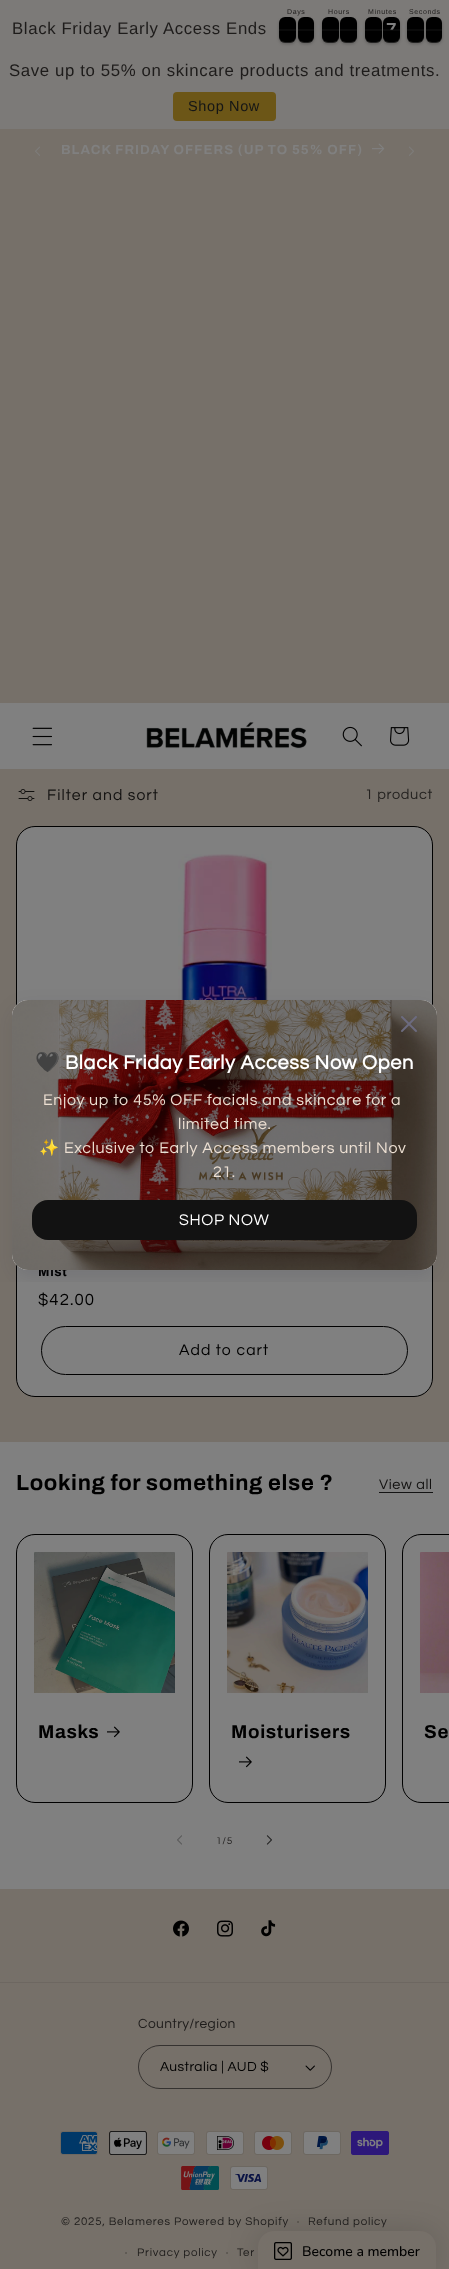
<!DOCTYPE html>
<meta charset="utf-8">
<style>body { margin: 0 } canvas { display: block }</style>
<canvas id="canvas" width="449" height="2269"></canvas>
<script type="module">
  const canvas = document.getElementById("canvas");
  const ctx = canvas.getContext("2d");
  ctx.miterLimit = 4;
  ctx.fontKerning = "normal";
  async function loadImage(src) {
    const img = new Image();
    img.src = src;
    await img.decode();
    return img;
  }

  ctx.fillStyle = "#808080";
  ctx.fillRect(0, 0, 449, 2269);
  ctx.fillStyle = "#7c7a78";
  ctx.fillRect(0, 0, 449, 129);
  ctx.letterSpacing = "0.63px";
  ctx.font = "16.8px Liberation Sans";
  ctx.fillStyle = "#1e1c1b";
  ctx.fillText("Black Friday Early Access Ends", 12, 34);
  ctx.fillStyle = "rgba(0, 0, 0, 0.24)";
  ctx.filter = "blur(1.5px)";
  ctx.beginPath();
  ctx.roundRect(279, 19, 17, 25, 6);
  ctx.fill();
  ctx.filter = "none";
  ctx.filter = "blur(1.5px)";
  ctx.beginPath();
  ctx.roundRect(298, 19, 16, 25, 6);
  ctx.fill();
  ctx.filter = "none";
  ctx.font = "7px Liberation Sans";
  ctx.fillStyle = "#1e1c1b";
  ctx.fillText("Days", 287, 14);
  ctx.fillStyle = "rgba(0, 0, 0, 0.4)";
  ctx.filter = "blur(0.5px)";
  ctx.beginPath();
  ctx.roundRect(279, 31, 17, 12, 6);
  ctx.fill();
  ctx.filter = "none";
  ctx.filter = "blur(0.5px)";
  ctx.beginPath();
  ctx.roundRect(298, 31, 16, 12, 6);
  ctx.fill();
  ctx.filter = "none";
  ctx.fillStyle = "#000000";
  ctx.beginPath();
  ctx.roundRect(279, 17, 17, 13, [6, 6, 0, 0]);
  ctx.fill();
  ctx.fillStyle = "rgba(26, 26, 26, 0.4)";
  ctx.fillRect(279, 29, 17, 1);
  ctx.fillStyle = "rgba(0, 0, 0, 0.4)";
  ctx.filter = "blur(0.5px)";
  ctx.beginPath();
  ctx.roundRect(279, 31, 17, 12, 6);
  ctx.fill();
  ctx.filter = "none";
  ctx.fillStyle = "#000000";
  ctx.beginPath();
  ctx.roundRect(279, 30, 17, 12, [0, 0, 6, 6]);
  ctx.fill();
  ctx.fillStyle = "rgba(102, 102, 102, 0.1)";
  ctx.fillRect(279, 30, 17, 1);
  ctx.fillStyle = "#000000";
  ctx.beginPath();
  ctx.roundRect(298, 17, 16, 13, [6, 6, 0, 0]);
  ctx.fill();
  ctx.fillStyle = "rgba(26, 26, 26, 0.4)";
  ctx.fillRect(298, 29, 16, 1);
  ctx.fillStyle = "rgba(0, 0, 0, 0.4)";
  ctx.filter = "blur(0.5px)";
  ctx.beginPath();
  ctx.roundRect(298, 31, 16, 12, 6);
  ctx.fill();
  ctx.filter = "none";
  ctx.fillStyle = "#000000";
  ctx.beginPath();
  ctx.roundRect(298, 30, 16, 12, [0, 0, 6, 6]);
  ctx.fill();
  ctx.fillStyle = "rgba(102, 102, 102, 0.1)";
  ctx.fillRect(298, 30, 16, 1);
  ctx.fillStyle = "#7c7b7b";
  ctx.beginPath();
  ctx.arc(318.5, 26.5, 1.5, 0, Math.PI * 2);
  ctx.fill();
  ctx.beginPath();
  ctx.arc(318.5, 33.5, 1.5, 0, Math.PI * 2);
  ctx.fill();
  ctx.fillStyle = "rgba(0, 0, 0, 0.24)";
  ctx.filter = "blur(1.5px)";
  ctx.beginPath();
  ctx.roundRect(322, 19, 17, 25, 6);
  ctx.fill();
  ctx.filter = "none";
  ctx.filter = "blur(1.5px)";
  ctx.beginPath();
  ctx.roundRect(340, 19, 17, 25, 6);
  ctx.fill();
  ctx.filter = "none";
  ctx.fillStyle = "#1e1c1b";
  ctx.fillText("Hours", 328, 14);
  ctx.fillStyle = "rgba(0, 0, 0, 0.4)";
  ctx.filter = "blur(0.5px)";
  ctx.beginPath();
  ctx.roundRect(322, 31, 17, 12, 6);
  ctx.fill();
  ctx.filter = "none";
  ctx.filter = "blur(0.5px)";
  ctx.beginPath();
  ctx.roundRect(340, 31, 17, 12, 6);
  ctx.fill();
  ctx.filter = "none";
  ctx.fillStyle = "#000000";
  ctx.beginPath();
  ctx.roundRect(322, 17, 17, 13, [6, 6, 0, 0]);
  ctx.fill();
  ctx.fillStyle = "rgba(26, 26, 26, 0.4)";
  ctx.fillRect(322, 29, 17, 1);
  ctx.fillStyle = "rgba(0, 0, 0, 0.4)";
  ctx.filter = "blur(0.5px)";
  ctx.beginPath();
  ctx.roundRect(322, 31, 17, 12, 6);
  ctx.fill();
  ctx.filter = "none";
  ctx.fillStyle = "#000000";
  ctx.beginPath();
  ctx.roundRect(322, 30, 17, 12, [0, 0, 6, 6]);
  ctx.fill();
  ctx.fillStyle = "rgba(102, 102, 102, 0.1)";
  ctx.fillRect(322, 30, 17, 1);
  ctx.fillStyle = "#000000";
  ctx.beginPath();
  ctx.roundRect(340, 17, 17, 13, [6, 6, 0, 0]);
  ctx.fill();
  ctx.fillStyle = "rgba(26, 26, 26, 0.4)";
  ctx.fillRect(340, 29, 17, 1);
  ctx.fillStyle = "rgba(0, 0, 0, 0.4)";
  ctx.filter = "blur(0.5px)";
  ctx.beginPath();
  ctx.roundRect(340, 31, 17, 12, 6);
  ctx.fill();
  ctx.filter = "none";
  ctx.fillStyle = "#000000";
  ctx.beginPath();
  ctx.roundRect(340, 30, 17, 12, [0, 0, 6, 6]);
  ctx.fill();
  ctx.fillStyle = "rgba(102, 102, 102, 0.1)";
  ctx.fillRect(340, 30, 17, 1);
  ctx.fillStyle = "#7c7b7b";
  ctx.beginPath();
  ctx.arc(361.5, 26.5, 1.5, 0, Math.PI * 2);
  ctx.fill();
  ctx.beginPath();
  ctx.arc(361.5, 33.5, 1.5, 0, Math.PI * 2);
  ctx.fill();
  ctx.fillStyle = "rgba(0, 0, 0, 0.24)";
  ctx.filter = "blur(1.5px)";
  ctx.beginPath();
  ctx.roundRect(365, 19, 17, 25, 6);
  ctx.fill();
  ctx.filter = "none";
  ctx.filter = "blur(1.5px)";
  ctx.beginPath();
  ctx.roundRect(383, 19, 17, 25, 6);
  ctx.fill();
  ctx.filter = "none";
  ctx.fillStyle = "#1e1c1b";
  ctx.fillText("Minutes", 368, 14);
  ctx.fillStyle = "rgba(0, 0, 0, 0.4)";
  ctx.filter = "blur(0.5px)";
  ctx.beginPath();
  ctx.roundRect(365, 31, 17, 12, 6);
  ctx.fill();
  ctx.filter = "none";
  ctx.fillStyle = "#7c7b7b";
  ctx.beginPath();
  ctx.arc(403.5, 33.5, 1.5, 0, Math.PI * 2);
  ctx.fill();
  ctx.fillStyle = "rgba(0, 0, 0, 0.4)";
  ctx.filter = "blur(0.5px)";
  ctx.beginPath();
  ctx.roundRect(383, 31, 17, 12, 6);
  ctx.fill();
  ctx.filter = "none";
  ctx.fillStyle = "#000000";
  ctx.beginPath();
  ctx.roundRect(365, 17, 17, 13, [6, 6, 0, 0]);
  ctx.fill();
  ctx.fillStyle = "rgba(26, 26, 26, 0.4)";
  ctx.fillRect(365, 29, 17, 1);
  ctx.fillStyle = "rgba(0, 0, 0, 0.4)";
  ctx.filter = "blur(0.5px)";
  ctx.beginPath();
  ctx.roundRect(365, 31, 17, 12, 6);
  ctx.fill();
  ctx.filter = "none";
  ctx.fillStyle = "#000000";
  ctx.beginPath();
  ctx.roundRect(365, 30, 17, 12, [0, 0, 6, 6]);
  ctx.fill();
  ctx.fillStyle = "rgba(102, 102, 102, 0.1)";
  ctx.fillRect(365, 30, 17, 1);
  ctx.fillStyle = "#000000";
  ctx.beginPath();
  ctx.roundRect(383, 17, 17, 13, [6, 6, 0, 0]);
  ctx.fill();
  ctx.font = "bold 19px Liberation Sans";
  ctx.fillStyle = "#808080";
  ctx.fillText("7", 386, 36);
  ctx.fillStyle = "rgba(26, 26, 26, 0.4)";
  ctx.fillRect(383, 29, 17, 1);
  ctx.fillStyle = "rgba(0, 0, 0, 0.4)";
  ctx.filter = "blur(0.5px)";
  ctx.beginPath();
  ctx.roundRect(383, 31, 17, 12, 6);
  ctx.fill();
  ctx.filter = "none";
  ctx.fillStyle = "#000000";
  ctx.beginPath();
  ctx.roundRect(383, 30, 17, 12, [0, 0, 6, 6]);
  ctx.fill();
  ctx.fillStyle = "rgba(102, 102, 102, 0.1)";
  ctx.fillRect(383, 30, 17, 1);
  ctx.fillStyle = "#7c7b7b";
  ctx.beginPath();
  ctx.arc(403.5, 26.5, 1.5, 0, Math.PI * 2);
  ctx.fill();
  ctx.fillStyle = "rgba(0, 0, 0, 0.24)";
  ctx.filter = "blur(1.5px)";
  ctx.beginPath();
  ctx.roundRect(407, 19, 17, 25, 6);
  ctx.fill();
  ctx.filter = "none";
  ctx.filter = "blur(1.5px)";
  ctx.beginPath();
  ctx.roundRect(426, 19, 16, 25, 6);
  ctx.fill();
  ctx.filter = "none";
  ctx.font = "7px Liberation Sans";
  ctx.fillStyle = "#1e1c1b";
  ctx.fillText("Seconds", 409, 14);
  ctx.fillStyle = "rgba(0, 0, 0, 0.4)";
  ctx.filter = "blur(0.5px)";
  ctx.beginPath();
  ctx.roundRect(407, 31, 17, 12, 6);
  ctx.fill();
  ctx.filter = "none";
  ctx.filter = "blur(0.5px)";
  ctx.beginPath();
  ctx.roundRect(426, 31, 16, 12, 6);
  ctx.fill();
  ctx.filter = "none";
  ctx.fillStyle = "#000000";
  ctx.beginPath();
  ctx.roundRect(407, 17, 17, 13, [6, 6, 0, 0]);
  ctx.fill();
  ctx.fillStyle = "rgba(26, 26, 26, 0.4)";
  ctx.fillRect(407, 29, 17, 1);
  ctx.fillStyle = "rgba(0, 0, 0, 0.4)";
  ctx.filter = "blur(0.5px)";
  ctx.beginPath();
  ctx.roundRect(407, 31, 17, 12, 6);
  ctx.fill();
  ctx.filter = "none";
  ctx.fillStyle = "#000000";
  ctx.beginPath();
  ctx.roundRect(407, 30, 17, 12, [0, 0, 6, 6]);
  ctx.fill();
  ctx.fillStyle = "rgba(102, 102, 102, 0.1)";
  ctx.fillRect(407, 30, 17, 1);
  ctx.fillStyle = "#000000";
  ctx.beginPath();
  ctx.roundRect(426, 17, 16, 13, [6, 6, 0, 0]);
  ctx.fill();
  ctx.fillStyle = "rgba(26, 26, 26, 0.4)";
  ctx.fillRect(426, 29, 16, 1);
  ctx.fillStyle = "rgba(0, 0, 0, 0.4)";
  ctx.filter = "blur(0.5px)";
  ctx.beginPath();
  ctx.roundRect(426, 31, 16, 12, 6);
  ctx.fill();
  ctx.filter = "none";
  ctx.fillStyle = "#000000";
  ctx.beginPath();
  ctx.roundRect(426, 30, 16, 12, [0, 0, 6, 6]);
  ctx.fill();
  ctx.fillStyle = "rgba(102, 102, 102, 0.1)";
  ctx.fillRect(426, 30, 16, 1);
  ctx.font = "16.8px Liberation Sans";
  ctx.fillStyle = "#1e1c1b";
  ctx.fillText("Save up to 55% on skincare products and treatments.", 9, 76);
  ctx.fillStyle = "#6c5617";
  ctx.beginPath();
  ctx.roundRect(173, 92, 103, 29, 4);
  ctx.fill();
  ctx.font = "14.5px Liberation Sans";
  ctx.fillStyle = "#151616";
  ctx.fillText("Shop Now", 188, 111);
  ctx.fillStyle = "#767069";
  ctx.fillRect(0, 129, 449, 574);
  ctx.drawImage(await loadImage("img1.png"), 35, 146, 5, 10);
  ctx.letterSpacing = "1.05px";
  ctx.font = "bold 13.2px Archivo";
  ctx.fillStyle = "#808080";
  ctx.fillText("BLACK FRIDAY OFFERS (UP TO 55% OFF)", 61, 154);
  ctx.drawImage(await loadImage("img2.png"), 372, 143, 13, 11);
  ctx.drawImage(await loadImage("img3.png"), 409, 146, 5, 10);
  ctx.drawImage(await loadImage("img4.png"), 32, 727, 20, 19);
  ctx.drawImage(await loadImage("img5.png"), 146, 722, 161, 27);
  ctx.drawImage(await loadImage("img6.png"), 342, 726, 20, 21);
  ctx.drawImage(await loadImage("img7.png"), 390, 727, 20, 19);
  ctx.fillStyle = "#767069";
  ctx.fillRect(0, 769, 449, 673);
  ctx.drawImage(await loadImage("img8.png"), 18, 789, 17, 12);
  ctx.font = "15.75px Questrial";
  ctx.fillStyle = "#121110";
  ctx.fillText("Filter and sort", 47, 800);
  ctx.letterSpacing = "0.63px";
  ctx.font = "14.5px Questrial";
  ctx.fillStyle = "#242220";
  ctx.fillText("1 product", 365, 799);
  ctx.fillStyle = "#808080";
  ctx.beginPath();
  ctx.roundRect(16.5, 826.5, 416, 570, 18.5);
  ctx.fill();
  ctx.strokeStyle = "#000000";
  ctx.stroke();
  ctx.drawImage(await loadImage("img9.png"), 178, 854, 94, 146);
  ctx.letterSpacing = "0.65px";
  ctx.font = "bold 13.2px Archivo";
  ctx.fillStyle = "#000000";
  ctx.fillText("Mist", 38, 1276);
  ctx.letterSpacing = "1.05px";
  ctx.font = "16.8px Questrial";
  ctx.fillText("$42.00", 38, 1305);
  ctx.beginPath();
  ctx.roundRect(41.5, 1326.5, 366, 48, 24);
  ctx.stroke();
  ctx.font = "15.75px Questrial";
  ctx.fillText("Add to cart", 179, 1355);
  ctx.letterSpacing = "0.65px";
  ctx.font = "bold 22px Archivo";
  ctx.fillText("Looking for something else ?", 16, 1490);
  ctx.letterSpacing = "0.63px";
  ctx.font = "14.5px Questrial";
  ctx.fillStyle = "#121110";
  ctx.fillText("View all", 379, 1489);
  ctx.fillStyle = "#131313";
  ctx.fillRect(379, 1492, 54, 1);
  ctx.beginPath();
  ctx.roundRect(16.5, 1534.5, 176, 268, 18.5);
  ctx.stroke();
  ctx.drawImage(await loadImage("img10.png"), 34, 1552, 141, 141);
  ctx.letterSpacing = "0.65px";
  ctx.font = "bold 18.75px Archivo";
  ctx.fillStyle = "#000000";
  ctx.fillText("Masks", 38, 1738);
  ctx.drawImage(await loadImage("img11.png"), 107, 1726, 13, 12);
  ctx.beginPath();
  ctx.roundRect(209.5, 1534.5, 176, 268, 18.5);
  ctx.stroke();
  ctx.drawImage(await loadImage("img12.png"), 227, 1552, 141, 141);
  ctx.fillText("Moisturisers", 231, 1738);
  ctx.drawImage(await loadImage("img11.png"), 239, 1756, 13, 12);
  ctx.beginPath();
  ctx.roundRect(402.5, 1534.5, 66, 268, 18.5);
  ctx.stroke();
  ctx.drawImage(await loadImage("img13.png"), 420, 1552, 29, 141);
  ctx.fillText("Se", 424, 1738);
  ctx.drawImage(await loadImage("img14.png"), 177, 1835, 5, 10);
  ctx.letterSpacing = "0.75px";
  ctx.font = "10px Questrial";
  ctx.fillStyle = "#1e1c1b";
  ctx.fillText("1/5", 216, 1844);
  ctx.drawImage(await loadImage("img15.png"), 266, 1835, 6, 10);
  ctx.save();
  ctx.beginPath();
  ctx.rect(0, 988, 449, 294);
  ctx.clip();
  ctx.fillStyle = "rgba(18, 17, 39, 0.1)";
  ctx.filter = "blur(10px)";
  ctx.beginPath();
  ctx.roundRect(12, 1008, 425, 270, 16);
  ctx.fill();
  ctx.filter = "none";
  ctx.restore();
  ctx.fillStyle = "#ffffff";
  ctx.beginPath();
  ctx.roundRect(12, 1000, 425, 270, 16);
  ctx.fill();
  ctx.drawImage(await loadImage("img16.png"), 12, 1000, 425, 270);
  ctx.drawImage(await loadImage("img17.png"), 401, 1016, 16, 16);
  ctx.letterSpacing = "0.63px";
  ctx.font = "bold 20px Noto Color Emoji";
  ctx.fillText("🖤", 35, 1069);
  ctx.font = "bold 20px Questrial";
  ctx.fillText("Black Friday Early Access Now Open", 65, 1069);
  ctx.font = "16px Questrial";
  ctx.fillStyle = "#ecdfd2";
  ctx.fillText("Enjoy up to 45% OFF facials and skincare for a", 43, 1105);
  ctx.fillText("limited time.", 178, 1129);
  ctx.font = "16px Noto Color Emoji";
  ctx.fillText("✨", 39, 1153);
  ctx.font = "16px Questrial";
  ctx.fillText("Exclusive to Early Access members until Nov", 64, 1153);
  ctx.fillText("21.", 213, 1177);
  ctx.fillStyle = "#121212";
  ctx.beginPath();
  ctx.roundRect(32, 1200, 385, 40, 16);
  ctx.fill();
  ctx.fillStyle = "#ffffff";
  ctx.fillText("SHOP NOW", 179, 1225);
  ctx.fillStyle = "#767069";
  ctx.fillRect(0, 1889, 449, 380);
  ctx.drawImage(await loadImage("img18.png"), 173, 1920, 16, 17);
  ctx.drawImage(await loadImage("img19.png"), 217, 1920, 16, 17);
  ctx.drawImage(await loadImage("img20.png"), 261, 1920, 15, 17);
  ctx.fillStyle = "#6d6761";
  ctx.fillRect(0, 1982, 449, 1);
  ctx.letterSpacing = "0.4px";
  ctx.font = "13.75px Questrial";
  ctx.fillStyle = "#1e1c1b";
  ctx.fillText("Country/region", 138, 2028);
  ctx.drawImage(await loadImage("img21.png"), 305, 2065, 10, 6);
  ctx.beginPath();
  ctx.roundRect(138.5, 2045.5, 193, 43, 21.5);
  ctx.strokeStyle = "#353230";
  ctx.stroke();
  ctx.fillStyle = "#000000";
  ctx.fillText("Australia | AUD $", 160, 2071);
  ctx.drawImage(await loadImage("img22.png"), 60, 2131, 38, 24);
  ctx.drawImage(await loadImage("img23.png"), 109, 2131, 38, 24);
  ctx.drawImage(await loadImage("img24.png"), 157, 2131, 38, 24);
  ctx.drawImage(await loadImage("img25.png"), 206, 2131, 38, 24);
  ctx.drawImage(await loadImage("img26.png"), 254, 2131, 38, 24);
  ctx.drawImage(await loadImage("img27.png"), 303, 2131, 38, 24);
  ctx.drawImage(await loadImage("img28.png"), 351, 2131, 38, 24);
  ctx.drawImage(await loadImage("img29.png"), 181, 2166, 38, 24);
  ctx.drawImage(await loadImage("img30.png"), 230, 2166, 38, 24);
  ctx.letterSpacing = "0.75px";
  ctx.font = "11.5px Questrial";
  ctx.fillStyle = "#1e1c1b";
  ctx.fillText("© 2025, Belameres Powered by Shopify", 61, 2225);
  ctx.font = "10px Questrial";
  ctx.fillText("·", 297, 2225);
  ctx.font = "11.5px Questrial";
  ctx.fillText("Refund policy", 308, 2225);
  ctx.font = "10px Questrial";
  ctx.fillText("·", 125, 2256);
  ctx.font = "11.5px Questrial";
  ctx.fillText("Privacy policy", 137, 2256);
  ctx.font = "10px Questrial";
  ctx.fillText("·", 226, 2256);
  ctx.font = "11.5px Questrial";
  ctx.fillText("Ter", 237, 2256);
  ctx.fillStyle = "rgba(0, 0, 0, 0.16)";
  ctx.filter = "blur(16px)";
  ctx.beginPath();
  ctx.roundRect(258, 2233, 178, 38, 16);
  ctx.fill();
  ctx.filter = "none";
  ctx.fillStyle = "#767069";
  ctx.beginPath();
  ctx.roundRect(258, 2231, 178, 38, [16, 16, 0, 0]);
  ctx.fill();
  ctx.drawImage(await loadImage("img31.png"), 274, 2242, 18, 18);
  ctx.letterSpacing = "0px";
  ctx.font = "500 14px Nunito";
  ctx.fillStyle = "#000000";
  ctx.fillText("Become a member", 302, 2256);
</script>
